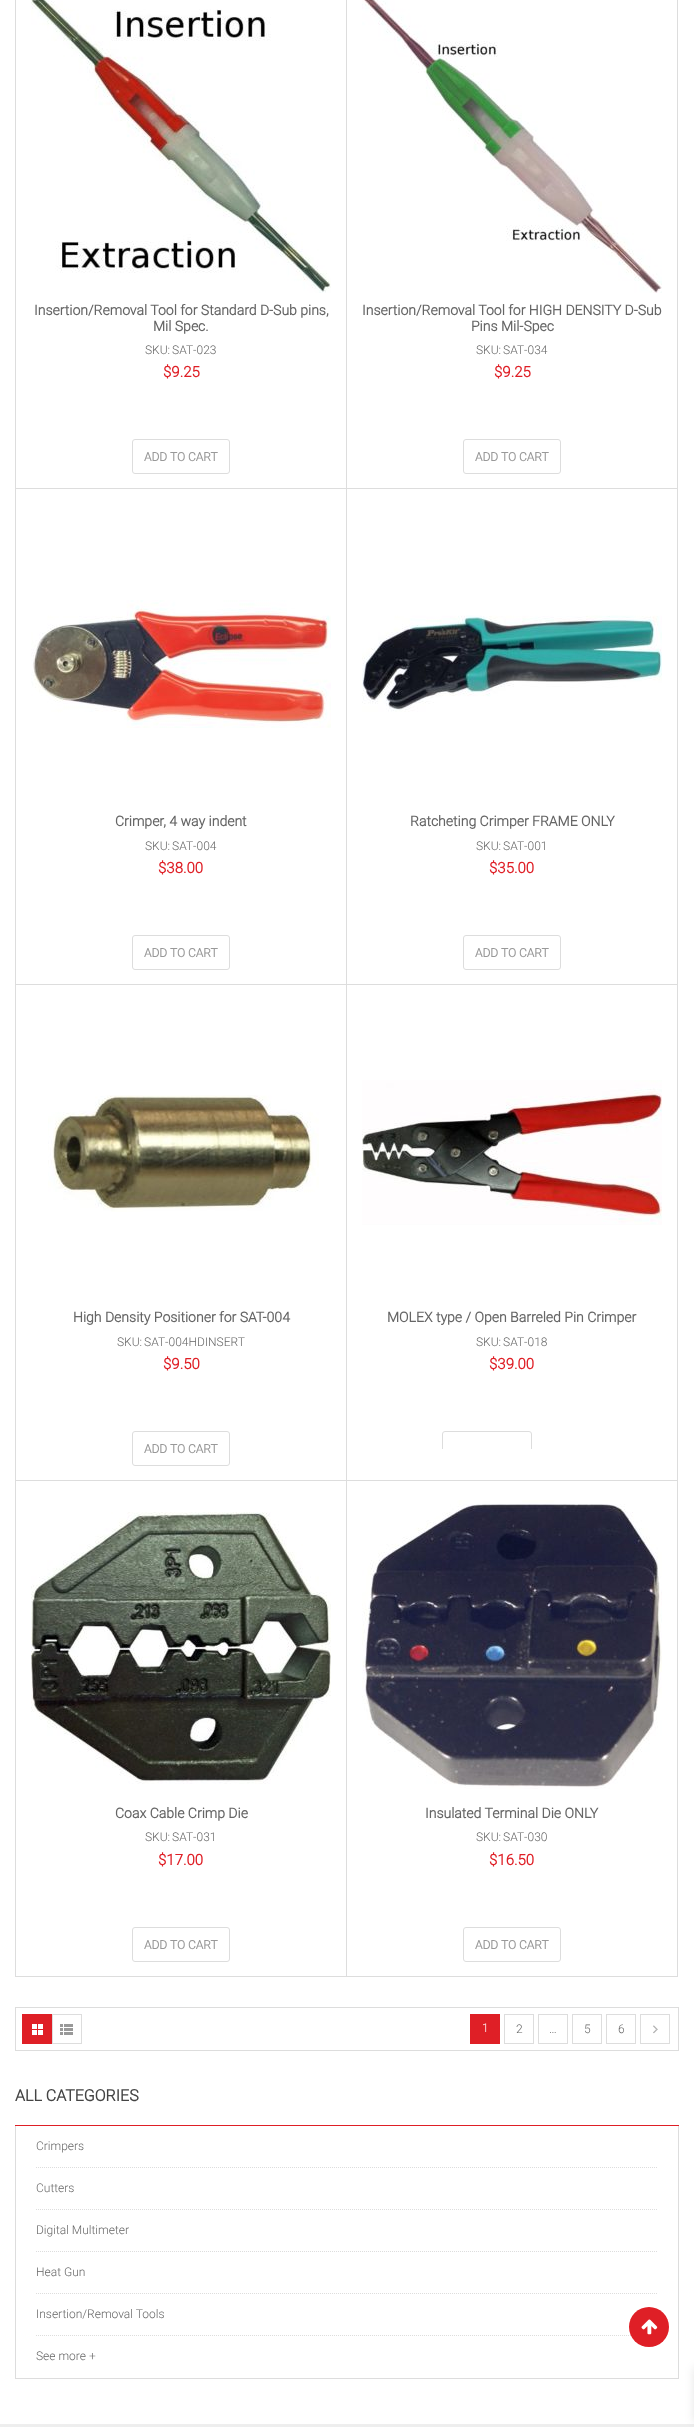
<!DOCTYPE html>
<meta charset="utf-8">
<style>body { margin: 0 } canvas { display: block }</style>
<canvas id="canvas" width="694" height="2427"></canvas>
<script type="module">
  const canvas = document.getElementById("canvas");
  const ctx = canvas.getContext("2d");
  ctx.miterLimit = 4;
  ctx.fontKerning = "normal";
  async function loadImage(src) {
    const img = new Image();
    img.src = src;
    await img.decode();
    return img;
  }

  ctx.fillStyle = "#ffffff";
  ctx.fillRect(0, 0, 694, 2427);
  ctx.strokeStyle = "#dddddd";
  ctx.strokeRect(15.5, -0.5, 331, 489);
  ctx.drawImage(await loadImage("img1.png"), 31, 0, 300, 293);
  ctx.font = "bold 14px Roboto";
  ctx.fillStyle = "#666666";
  ctx.fillText("Insertion/Removal Tool for Standard D-Sub pins,", 34, 315);
  ctx.fillText("Mil Spec.", 153, 331);
  ctx.wordSpacing = "-1px";
  ctx.font = "300 12px Roboto";
  ctx.fillText("SKU: SAT-023", 145, 354);
  ctx.wordSpacing = "0px";
  ctx.font = "bold 15px Roboto";
  ctx.fillStyle = "#df1f26";
  ctx.fillText("$9.25", 163, 377);
  ctx.beginPath();
  ctx.roundRect(132.5, 439.5, 97, 34, 2.5);
  ctx.stroke();
  ctx.font = "bold 12px Roboto";
  ctx.fillStyle = "#999999";
  ctx.fillText("ADD TO CART", 144, 461);
  ctx.strokeRect(346.5, -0.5, 331, 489);
  ctx.drawImage(await loadImage("img2.png"), 362, 0, 300, 293);
  ctx.font = "bold 14px Roboto";
  ctx.fillStyle = "#666666";
  ctx.fillText("Insertion/Removal Tool for HIGH DENSITY D-Sub", 362, 315);
  ctx.fillText("Pins Mil-Spec", 471, 331);
  ctx.wordSpacing = "-1px";
  ctx.font = "300 12px Roboto";
  ctx.fillText("SKU: SAT-034", 476, 354);
  ctx.wordSpacing = "0px";
  ctx.font = "bold 15px Roboto";
  ctx.fillStyle = "#df1f26";
  ctx.fillText("$9.25", 494, 377);
  ctx.beginPath();
  ctx.roundRect(463.5, 439.5, 97, 34, 2.5);
  ctx.stroke();
  ctx.font = "bold 12px Roboto";
  ctx.fillStyle = "#999999";
  ctx.fillText("ADD TO CART", 475, 461);
  ctx.strokeRect(15.5, 488.5, 331, 496);
  ctx.drawImage(await loadImage("img3.png"), 31, 600, 300, 128);
  ctx.font = "bold 14px Roboto";
  ctx.fillStyle = "#666666";
  ctx.fillText("Crimper, 4 way indent", 115, 826);
  ctx.wordSpacing = "-1px";
  ctx.font = "300 12px Roboto";
  ctx.fillText("SKU: SAT-004", 145, 850);
  ctx.wordSpacing = "0px";
  ctx.font = "bold 15px Roboto";
  ctx.fillStyle = "#df1f26";
  ctx.fillText("$38.00", 158, 873);
  ctx.beginPath();
  ctx.roundRect(132.5, 935.5, 97, 34, 2.5);
  ctx.stroke();
  ctx.font = "bold 12px Roboto";
  ctx.fillStyle = "#999999";
  ctx.fillText("ADD TO CART", 144, 957);
  ctx.strokeRect(346.5, 488.5, 331, 496);
  ctx.drawImage(await loadImage("img4.png"), 362, 615, 300, 97);
  ctx.font = "bold 14px Roboto";
  ctx.fillStyle = "#666666";
  ctx.fillText("Ratcheting Crimper FRAME ONLY", 410, 826);
  ctx.wordSpacing = "-1px";
  ctx.font = "300 12px Roboto";
  ctx.fillText("SKU: SAT-001", 476, 850);
  ctx.wordSpacing = "0px";
  ctx.font = "bold 15px Roboto";
  ctx.fillStyle = "#df1f26";
  ctx.fillText("$35.00", 489, 873);
  ctx.beginPath();
  ctx.roundRect(463.5, 935.5, 97, 34, 2.5);
  ctx.stroke();
  ctx.font = "bold 12px Roboto";
  ctx.fillStyle = "#999999";
  ctx.fillText("ADD TO CART", 475, 957);
  ctx.strokeRect(15.5, 984.5, 331, 496);
  ctx.drawImage(await loadImage("img5.png"), 48, 1095, 271, 117);
  ctx.font = "bold 14px Roboto";
  ctx.fillStyle = "#666666";
  ctx.fillText("High Density Positioner for SAT-004", 73, 1322);
  ctx.wordSpacing = "-1px";
  ctx.font = "300 12px Roboto";
  ctx.fillText("SKU: SAT-004HDINSERT", 117, 1346);
  ctx.wordSpacing = "0px";
  ctx.font = "bold 15px Roboto";
  ctx.fillStyle = "#df1f26";
  ctx.fillText("$9.50", 163, 1369);
  ctx.beginPath();
  ctx.roundRect(132.5, 1431.5, 97, 34, 2.5);
  ctx.stroke();
  ctx.font = "bold 12px Roboto";
  ctx.fillStyle = "#999999";
  ctx.fillText("ADD TO CART", 144, 1453);
  ctx.strokeRect(346.5, 984.5, 331, 496);
  ctx.drawImage(await loadImage("img6.png"), 362, 1080, 300, 145);
  ctx.font = "bold 14px Roboto";
  ctx.fillStyle = "#666666";
  ctx.fillText("MOLEX type / Open Barreled Pin Crimper", 387, 1322);
  ctx.wordSpacing = "-1px";
  ctx.font = "300 12px Roboto";
  ctx.fillText("SKU: SAT-018", 476, 1346);
  ctx.wordSpacing = "0px";
  ctx.font = "bold 15px Roboto";
  ctx.fillStyle = "#df1f26";
  ctx.fillText("$39.00", 489, 1369);
  ctx.save();
  ctx.beginPath();
  ctx.rect(347, 985, 330, 464);
  ctx.clip();
  ctx.beginPath();
  ctx.roundRect(442.5, 1431.5, 89, 34, 2.5);
  ctx.stroke();
  ctx.restore();
  ctx.strokeRect(15.5, 1480.5, 331, 496);
  ctx.drawImage(await loadImage("img7.png"), 31, 1512, 300, 272);
  ctx.font = "bold 14px Roboto";
  ctx.fillStyle = "#666666";
  ctx.fillText("Coax Cable Crimp Die", 115, 1818);
  ctx.wordSpacing = "-1px";
  ctx.font = "300 12px Roboto";
  ctx.fillText("SKU: SAT-031", 145, 1841);
  ctx.wordSpacing = "0px";
  ctx.font = "bold 15px Roboto";
  ctx.fillStyle = "#df1f26";
  ctx.fillText("$17.00", 158, 1865);
  ctx.beginPath();
  ctx.roundRect(132.5, 1927.5, 97, 34, 2.5);
  ctx.stroke();
  ctx.font = "bold 12px Roboto";
  ctx.fillStyle = "#999999";
  ctx.fillText("ADD TO CART", 144, 1949);
  ctx.strokeRect(346.5, 1480.5, 331, 496);
  ctx.drawImage(await loadImage("img8.png"), 362, 1500, 300, 289);
  ctx.font = "bold 14px Roboto";
  ctx.fillStyle = "#666666";
  ctx.fillText("Insulated Terminal Die ONLY", 425, 1818);
  ctx.wordSpacing = "-1px";
  ctx.font = "300 12px Roboto";
  ctx.fillText("SKU: SAT-030", 476, 1841);
  ctx.wordSpacing = "0px";
  ctx.font = "bold 15px Roboto";
  ctx.fillStyle = "#df1f26";
  ctx.fillText("$16.50", 489, 1865);
  ctx.beginPath();
  ctx.roundRect(463.5, 1927.5, 97, 34, 2.5);
  ctx.stroke();
  ctx.font = "bold 12px Roboto";
  ctx.fillStyle = "#999999";
  ctx.fillText("ADD TO CART", 475, 1949);
  ctx.strokeRect(15.5, 2007.5, 663, 43);
  ctx.fillStyle = "#df1f26";
  ctx.fillRect(22, 2014, 30, 30);
  ctx.drawImage(await loadImage("img9.png"), 32, 2024, 11, 11);
  ctx.drawImage(await loadImage("img10.png"), 60, 2024, 13, 11);
  ctx.strokeRect(52.5, 2014.5, 29, 29);
  ctx.fillRect(470, 2014, 30, 30);
  ctx.font = "300 12px Roboto";
  ctx.fillStyle = "#ffffff";
  ctx.fillText("1", 482, 2032);
  ctx.strokeRect(504.5, 2014.5, 29, 29);
  ctx.fillStyle = "#666666";
  ctx.fillText("2", 516, 2033);
  ctx.strokeRect(538.5, 2014.5, 29, 29);
  ctx.fillText("…", 549, 2033);
  ctx.strokeRect(572.5, 2014.5, 29, 29);
  ctx.fillText("5", 584, 2033);
  ctx.strokeRect(606.5, 2014.5, 29, 29);
  ctx.fillText("6", 618, 2033);
  ctx.drawImage(await loadImage("img11.png"), 653, 2025, 5, 9);
  ctx.strokeRect(640.5, 2014.5, 29, 29);
  ctx.fillStyle = "#df1f26";
  ctx.fillRect(15, 2125, 664, 1);
  ctx.font = "bold 16px Roboto";
  ctx.fillStyle = "#444444";
  ctx.fillText("ALL CATEGORIES", 15, 2101);
  ctx.fillStyle = "#dddddd";
  ctx.fillRect(678, 2126, 1, 253);
  ctx.fillRect(15, 2378, 664, 1);
  ctx.fillRect(15, 2126, 1, 253);
  ctx.beginPath();
  ctx.moveTo(36, 2167.5);
  ctx.lineTo(658, 2167.5);
  ctx.setLineDash([1, 1]);
  ctx.stroke();
  ctx.font = "300 12px Roboto";
  ctx.fillStyle = "#666666";
  ctx.fillText("Crimpers", 36, 2150);
  ctx.beginPath();
  ctx.moveTo(36, 2209.5);
  ctx.lineTo(658, 2209.5);
  ctx.stroke();
  ctx.fillText("Cutters", 36, 2192);
  ctx.beginPath();
  ctx.moveTo(36, 2251.5);
  ctx.lineTo(658, 2251.5);
  ctx.stroke();
  ctx.fillText("Digital Multimeter", 36, 2234);
  ctx.beginPath();
  ctx.moveTo(36, 2293.5);
  ctx.lineTo(658, 2293.5);
  ctx.stroke();
  ctx.fillText("Heat Gun", 36, 2276);
  ctx.beginPath();
  ctx.moveTo(36, 2335.5);
  ctx.lineTo(658, 2335.5);
  ctx.stroke();
  ctx.fillText("Insertion/Removal Tools", 36, 2318);
  ctx.fillText("See more +", 36, 2360);
  ctx.fillStyle = "#eeeeee";
  ctx.fillRect(0, 2424, 694, 3);
  ctx.fillStyle = "#df1f26";
  ctx.beginPath();
  ctx.arc(649, 2327, 20, 0, Math.PI * 2);
  ctx.fill();
  ctx.drawImage(await loadImage("img12.png"), 641, 2319, 17, 16);
  ctx.fillStyle = "rgba(0, 0, 0, 0.1)";
  ctx.filter = "blur(5px)";
  ctx.beginPath();
  ctx.rect(694, 2367, 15, 55);
  ctx.fill();
  ctx.filter = "none";
</script>
